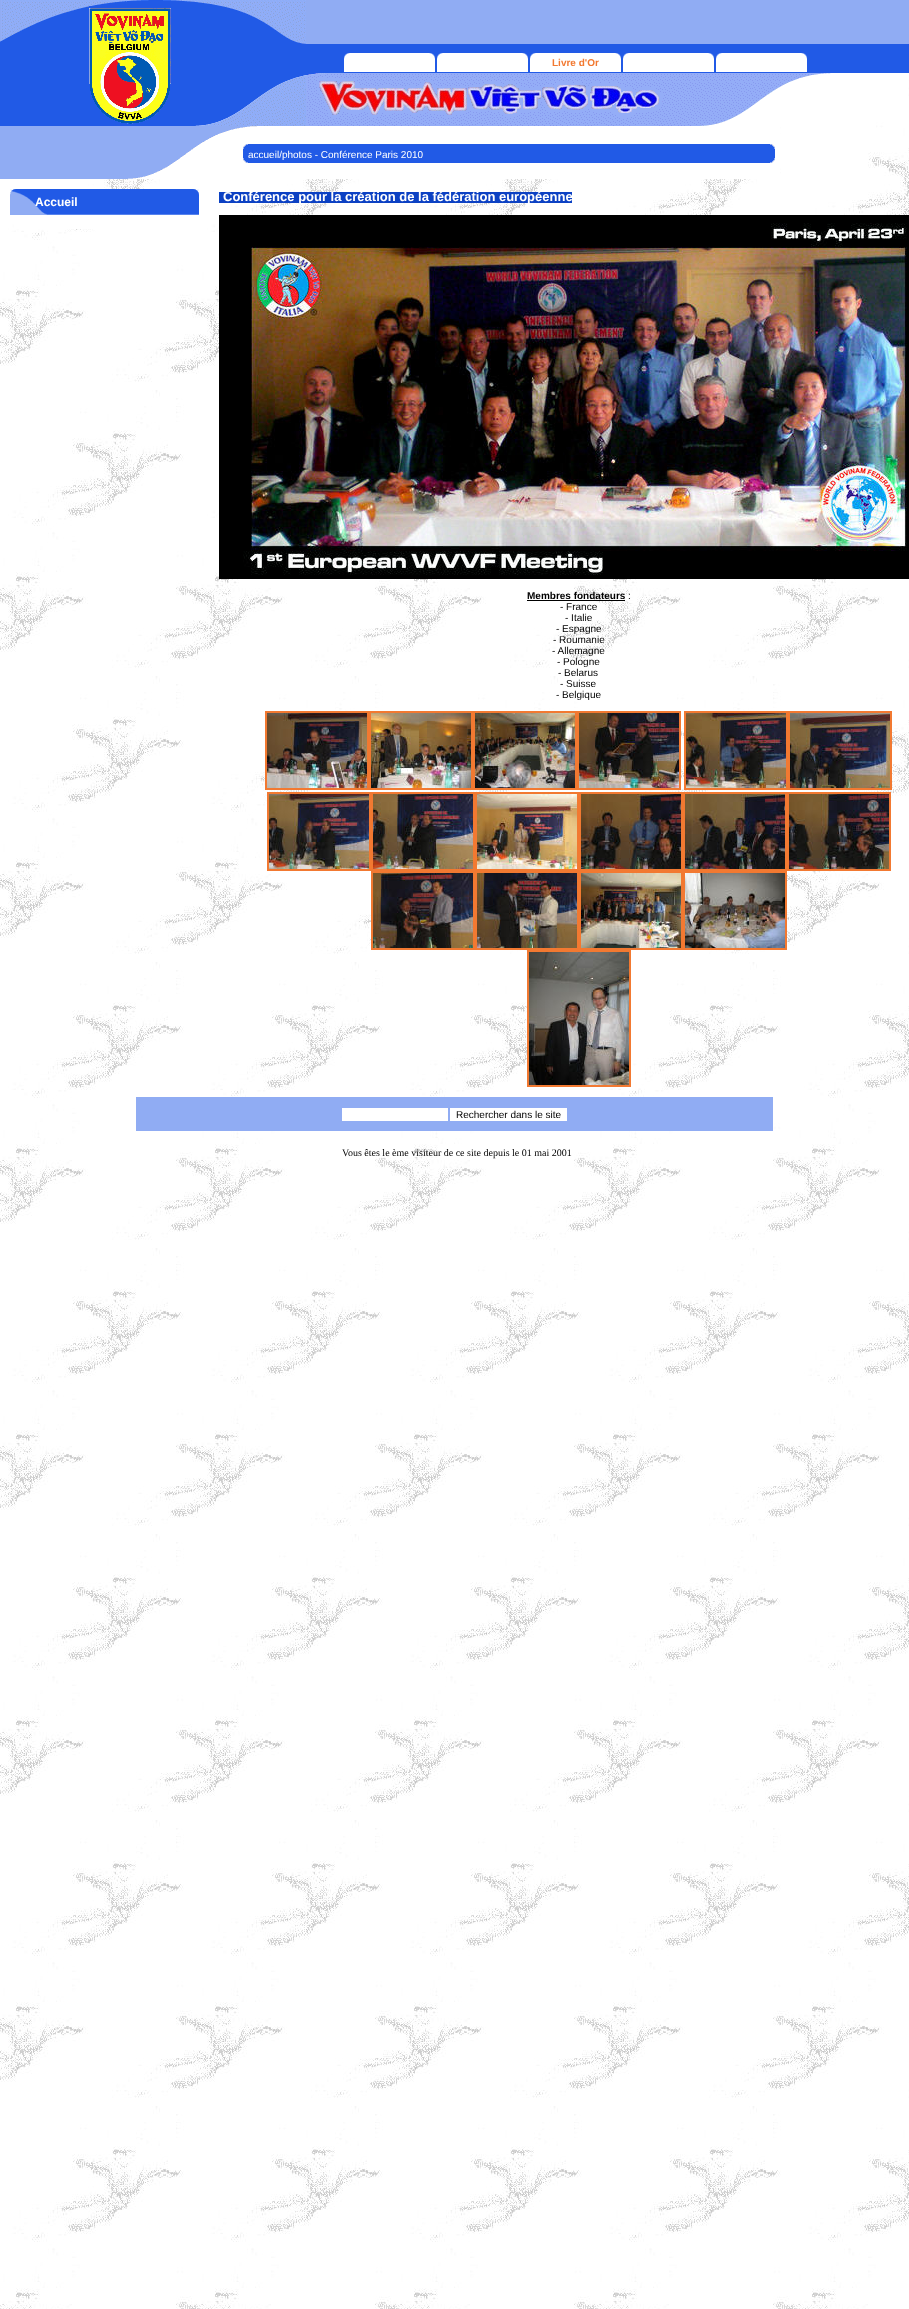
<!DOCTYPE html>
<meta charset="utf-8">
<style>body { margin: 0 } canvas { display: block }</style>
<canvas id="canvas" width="909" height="2309"></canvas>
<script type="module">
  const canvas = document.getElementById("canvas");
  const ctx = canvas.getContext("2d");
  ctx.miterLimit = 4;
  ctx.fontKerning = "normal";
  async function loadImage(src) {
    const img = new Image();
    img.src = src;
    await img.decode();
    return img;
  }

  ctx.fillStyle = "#ffffff";
  ctx.fillRect(0, 0, 909, 2309);
  ctx.drawImage(await loadImage("img1.png"), 0, 73, 909, 2236);
  ctx.drawImage(await loadImage("img2.png"), 0, 0, 1, 126);
  ctx.drawImage(await loadImage("img3.png"), 1, 0, 305, 126);
  ctx.drawImage(await loadImage("img4.png"), 306, 0, 538, 72);
  ctx.drawImage(await loadImage("img5.png"), 344, 53, 91, 19);
  ctx.drawImage(await loadImage("img5.png"), 437, 53, 91, 19);
  ctx.drawImage(await loadImage("img5.png"), 530, 53, 91, 19);
  ctx.font = "bold 10px Liberation Sans";
  ctx.fillStyle = "#f27931";
  ctx.fillText("Livre d'Or", 552, 66);
  ctx.drawImage(await loadImage("img5.png"), 623, 53, 91, 19);
  ctx.drawImage(await loadImage("img5.png"), 716, 53, 91, 19);
  ctx.drawImage(await loadImage("img6.png"), 844, 0, 65, 72);
  ctx.drawImage(await loadImage("img7.png"), 306, 72, 538, 54);
  ctx.fillStyle = "#215ae6";
  ctx.fillRect(844, 72, 65, 1);
  ctx.drawImage(await loadImage("img8.png"), 0, 126, 780, 53);
  ctx.font = "10px Liberation Sans";
  ctx.fillStyle = "#ffffff";
  ctx.fillText("accueil/photos - Conférence Paris 2010", 248, 158);
  ctx.drawImage(await loadImage("img9.png"), 10, 189, 189, 26);
  ctx.font = "bold 12px Liberation Sans";
  ctx.fillText("Accueil", 35, 206);
  ctx.fillRect(14, 215, 105, 14);
  ctx.fillStyle = "#0c41c3";
  ctx.fillRect(219, 192, 353, 11);
  ctx.font = "bold 13px Liberation Sans";
  ctx.fillStyle = "#ffffff";
  ctx.fillText("Conférence pour la création de la fédération européenne", 223, 201);
  ctx.drawImage(await loadImage("img10.png"), 219, 215, 690, 364);
  ctx.font = "bold 10px Liberation Sans";
  ctx.fillStyle = "#000000";
  ctx.fillText("Membres fondateurs", 527, 599);
  ctx.fillRect(527, 600, 98, 1);
  ctx.font = "10px Liberation Sans";
  ctx.fillText(":", 628, 599);
  ctx.fillText("- France", 560, 610);
  ctx.fillText("- Italie", 565, 621);
  ctx.fillText("- Espagne", 556, 632);
  ctx.fillText("- Roumanie", 553, 643);
  ctx.fillText("- Allemagne", 552, 654);
  ctx.fillText("- Pologne", 557, 665);
  ctx.fillText("- Belarus", 558, 676);
  ctx.fillText("- Suisse", 560, 687);
  ctx.fillText("- Belgique", 556, 698);
  ctx.strokeStyle = "#f27931";
  ctx.lineWidth = 2;
  ctx.strokeRect(266, 712, 102, 77);
  ctx.strokeRect(370, 712, 102, 77);
  ctx.strokeRect(474, 712, 102, 77);
  ctx.strokeRect(578, 712, 102, 77);
  ctx.strokeRect(685, 712, 102, 77);
  ctx.strokeRect(789, 712, 102, 77);
  ctx.drawImage(await loadImage("img11.png"), 267, 713, 100, 75);
  ctx.drawImage(await loadImage("img12.png"), 371, 713, 100, 75);
  ctx.drawImage(await loadImage("img13.png"), 475, 713, 100, 75);
  ctx.drawImage(await loadImage("img14.png"), 579, 713, 100, 75);
  ctx.drawImage(await loadImage("img15.png"), 686, 713, 100, 75);
  ctx.drawImage(await loadImage("img16.png"), 790, 713, 100, 75);
  ctx.strokeRect(268, 793, 102, 77);
  ctx.strokeRect(372, 793, 102, 77);
  ctx.strokeRect(476, 793, 102, 77);
  ctx.strokeRect(580, 793, 102, 77);
  ctx.strokeRect(684, 793, 102, 77);
  ctx.strokeRect(788, 793, 102, 77);
  ctx.drawImage(await loadImage("img17.png"), 269, 794, 100, 75);
  ctx.drawImage(await loadImage("img18.png"), 373, 794, 100, 75);
  ctx.drawImage(await loadImage("img19.png"), 477, 794, 100, 75);
  ctx.drawImage(await loadImage("img20.png"), 581, 794, 100, 75);
  ctx.drawImage(await loadImage("img21.png"), 685, 794, 100, 75);
  ctx.drawImage(await loadImage("img22.png"), 789, 794, 100, 75);
  ctx.strokeRect(372, 872, 102, 77);
  ctx.strokeRect(476, 872, 102, 77);
  ctx.strokeRect(580, 872, 102, 77);
  ctx.strokeRect(684, 872, 102, 77);
  ctx.drawImage(await loadImage("img23.png"), 373, 873, 100, 75);
  ctx.drawImage(await loadImage("img24.png"), 477, 873, 100, 75);
  ctx.drawImage(await loadImage("img25.png"), 581, 873, 100, 75);
  ctx.drawImage(await loadImage("img26.png"), 685, 873, 100, 75);
  ctx.strokeRect(528, 951, 102, 135);
  ctx.drawImage(await loadImage("img27.png"), 529, 952, 100, 133);
  ctx.fillStyle = "#90acf3";
  ctx.fillRect(136, 1097, 637, 34);
  ctx.fillStyle = "#ffffff";
  ctx.fillRect(342, 1108, 106, 13);
  ctx.fillRect(450, 1108, 117, 13);
  ctx.fillStyle = "#000000";
  ctx.fillText("Rechercher dans le site", 456, 1118);
  ctx.font = "10px Liberation Serif";
  ctx.fillText("Vous êtes le ème visiteur de ce site depuis le 01 mai 2001", 342, 1156);
</script>
